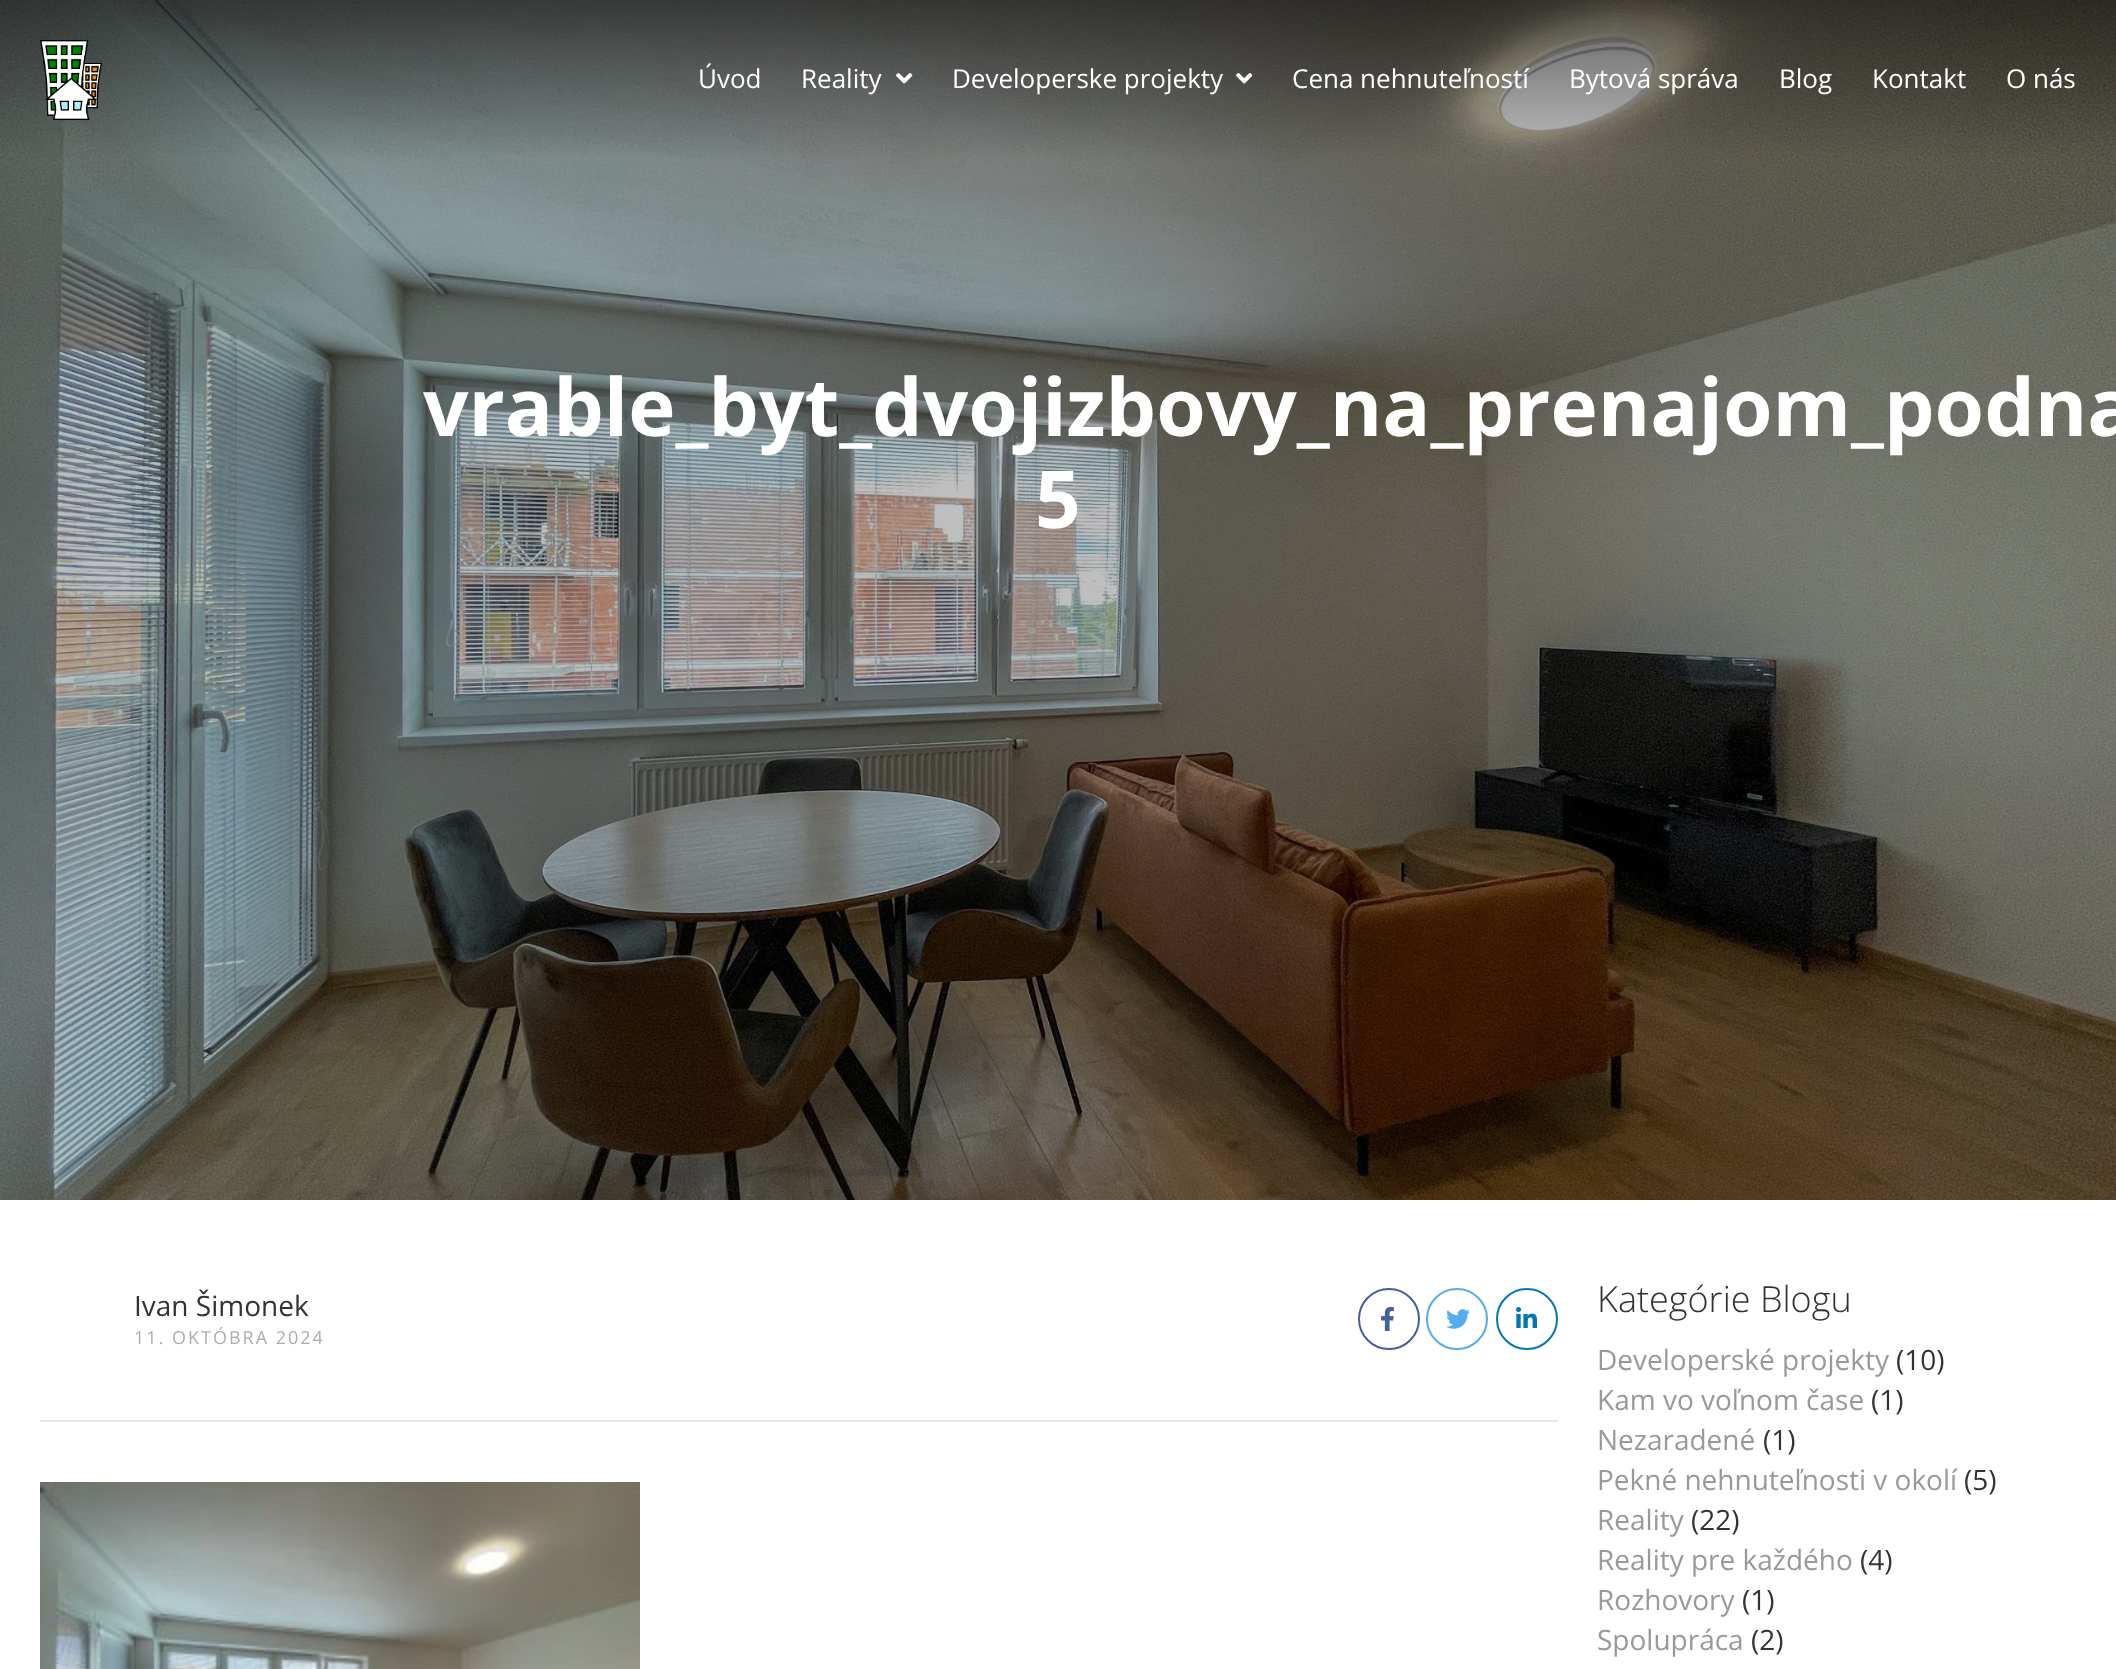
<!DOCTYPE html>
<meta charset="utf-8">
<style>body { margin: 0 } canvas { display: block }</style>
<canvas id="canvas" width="2116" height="1669"></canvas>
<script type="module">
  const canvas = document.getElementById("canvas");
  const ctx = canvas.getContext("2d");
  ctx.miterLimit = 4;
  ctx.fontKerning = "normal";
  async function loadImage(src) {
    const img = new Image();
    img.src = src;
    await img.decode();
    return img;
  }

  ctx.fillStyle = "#ffffff";
  ctx.fillRect(0, 0, 2116, 1669);
  ctx.drawImage(await loadImage("img4.png"), 0, 0, 2116, 1200);
  ctx.drawImage(await loadImage("img1.png"), 40, 40, 62, 80);
  ctx.font = "26px Open Sans";
  ctx.fillText("Úvod", 698, 88);
  ctx.fillText("Reality", 801, 88);
  ctx.drawImage(await loadImage("img2.png"), 896, 73, 17, 11);
  ctx.fillText("Developerske projekty", 952, 88);
  ctx.drawImage(await loadImage("img3.png"), 1236, 73, 17, 11);
  ctx.fillText("Cena nehnuteľností", 1292, 88);
  ctx.fillText("Bytová správa", 1569, 88);
  ctx.fillText("Blog", 1779, 88);
  ctx.fillText("Kontakt", 1872, 88);
  ctx.fillText("O nás", 2006, 88);
  ctx.font = "bold 80px Open Sans";
  ctx.fillText("vrable_byt_dvojizbovy_na_prenajom_podna", 423, 436);
  ctx.fillText("5", 1035, 528);
  ctx.fillStyle = "#e8e8e8";
  ctx.fillRect(40, 1420, 1518, 2);
  ctx.font = "28px Open Sans";
  ctx.fillStyle = "#333333";
  ctx.fillText("Ivan Šimonek", 134, 1316);
  ctx.letterSpacing = "2px";
  ctx.font = "18px Open Sans";
  ctx.fillStyle = "#adadad";
  ctx.fillText("11. OKTÓBRA 2024", 134, 1344);
  ctx.beginPath();
  ctx.arc(1389, 1319, 30, 0, Math.PI * 2);
  ctx.strokeStyle = "#43609c";
  ctx.lineWidth = 2;
  ctx.stroke();
  ctx.drawImage(await loadImage("img5.png"), 1381, 1307, 13, 24);
  ctx.beginPath();
  ctx.arc(1457, 1319, 30, 0, Math.PI * 2);
  ctx.strokeStyle = "#55acee";
  ctx.stroke();
  ctx.drawImage(await loadImage("img6.png"), 1446, 1309, 24, 20);
  ctx.beginPath();
  ctx.arc(1527, 1319, 30, 0, Math.PI * 2);
  ctx.strokeStyle = "#0177b5";
  ctx.stroke();
  ctx.drawImage(await loadImage("img7.png"), 1516, 1307, 21, 21);
  ctx.drawImage(await loadImage("img8.png"), 40, 1482, 600, 187);
  ctx.letterSpacing = "0px";
  ctx.font = "300 36px Open Sans";
  ctx.fillStyle = "#333333";
  ctx.fillText("Kategórie Blogu", 1597, 1312);
  ctx.font = "28px Open Sans";
  ctx.fillStyle = "#999999";
  ctx.fillText("Developerské projekty", 1597, 1370);
  ctx.fillStyle = "#333333";
  ctx.fillText("(10)", 1896, 1370);
  ctx.fillStyle = "#999999";
  ctx.fillText("Kam vo voľnom čase", 1597, 1410);
  ctx.fillStyle = "#333333";
  ctx.fillText("(1)", 1871, 1410);
  ctx.fillStyle = "#999999";
  ctx.fillText("Nezaradené", 1597, 1450);
  ctx.fillStyle = "#333333";
  ctx.fillText("(1)", 1763, 1450);
  ctx.fillStyle = "#999999";
  ctx.fillText("Pekné nehnuteľnosti v okolí", 1597, 1490);
  ctx.fillStyle = "#333333";
  ctx.fillText("(5)", 1964, 1490);
  ctx.fillStyle = "#999999";
  ctx.fillText("Reality", 1597, 1530);
  ctx.fillStyle = "#333333";
  ctx.fillText("(22)", 1691, 1530);
  ctx.fillStyle = "#999999";
  ctx.fillText("Reality pre každého", 1597, 1570);
  ctx.fillStyle = "#333333";
  ctx.fillText("(4)", 1860, 1570);
  ctx.fillStyle = "#999999";
  ctx.fillText("Rozhovory", 1597, 1610);
  ctx.fillStyle = "#333333";
  ctx.fillText("(1)", 1742, 1610);
  ctx.fillStyle = "#999999";
  ctx.fillText("Spolupráca", 1597, 1650);
  ctx.fillStyle = "#333333";
  ctx.fillText("(2)", 1751, 1650);
</script>
